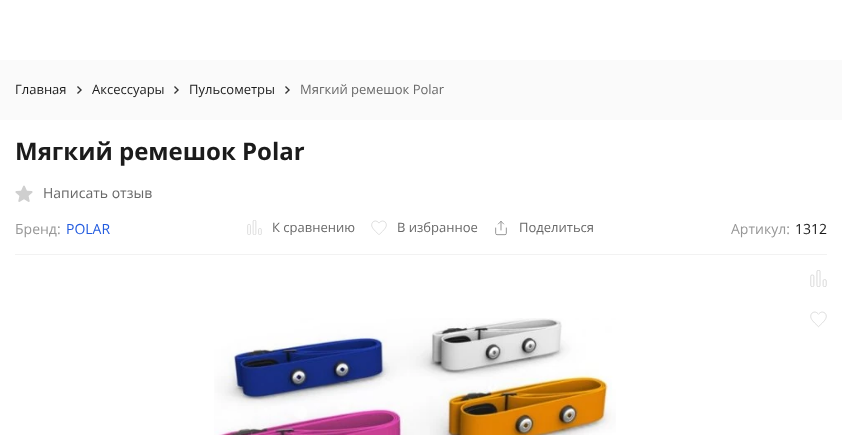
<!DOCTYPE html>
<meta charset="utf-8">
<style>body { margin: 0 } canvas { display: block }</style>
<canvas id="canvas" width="842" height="435"></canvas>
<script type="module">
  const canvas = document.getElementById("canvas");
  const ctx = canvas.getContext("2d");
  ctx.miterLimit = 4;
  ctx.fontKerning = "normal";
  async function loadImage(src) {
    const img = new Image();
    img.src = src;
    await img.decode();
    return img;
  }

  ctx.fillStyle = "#ffffff";
  ctx.fillRect(0, 0, 842, 435);
  ctx.fillStyle = "#fafafa";
  ctx.fillRect(0, 60, 842, 60);
  ctx.font = "13px Open Sans";
  ctx.fillStyle = "#1b1b1b";
  ctx.fillText("Главная", 15, 94);
  ctx.drawImage(await loadImage("img1.png"), 77, 86, 5, 8);
  ctx.fillText("Аксессуары", 92, 94);
  ctx.drawImage(await loadImage("img1.png"), 174, 86, 5, 8);
  ctx.fillText("Пульсометры", 189, 94);
  ctx.drawImage(await loadImage("img1.png"), 285, 86, 5, 8);
  ctx.fillStyle = "#686868";
  ctx.fillText("Мягкий ремешок Polar", 300, 94);
  ctx.fillStyle = "#f2f2f2";
  ctx.fillRect(15, 254, 812, 1);
  ctx.font = "bold 24px Open Sans";
  ctx.fillStyle = "#1b1b1b";
  ctx.fillText("Мягкий ремешок Polar", 15, 160);
  ctx.drawImage(await loadImage("img2.png"), 15, 185, 18, 17);
  ctx.font = "14px Open Sans";
  ctx.fillStyle = "#686868";
  ctx.fillText("Написать отзыв", 43, 198);
  ctx.fillStyle = "#979797";
  ctx.fillText("Бренд:", 15, 234);
  ctx.fillStyle = "#225bdf";
  ctx.fillText("POLAR", 66, 234);
  ctx.drawImage(await loadImage("img3.png"), 247, 220, 15, 15);
  ctx.font = "13px Open Sans";
  ctx.fillStyle = "#686868";
  ctx.fillText("К сравнению", 272, 232);
  ctx.drawImage(await loadImage("img4.png"), 371, 220, 16, 15);
  ctx.fillText("В избранное", 397, 232);
  ctx.drawImage(await loadImage("img5.png"), 495, 221, 12, 15);
  ctx.fillText("Поделиться", 519, 232);
  ctx.font = "14px Open Sans";
  ctx.fillStyle = "#979797";
  ctx.fillText("Артикул:", 731, 234);
  ctx.fillStyle = "#1b1b1b";
  ctx.fillText("1312", 795, 234);
  ctx.drawImage(await loadImage("img6.png"), 810, 270, 17, 17);
  ctx.drawImage(await loadImage("img7.png"), 810, 311, 17, 17);
  ctx.drawImage(await loadImage("img8.png"), 214, 318, 402, 117);
</script>
